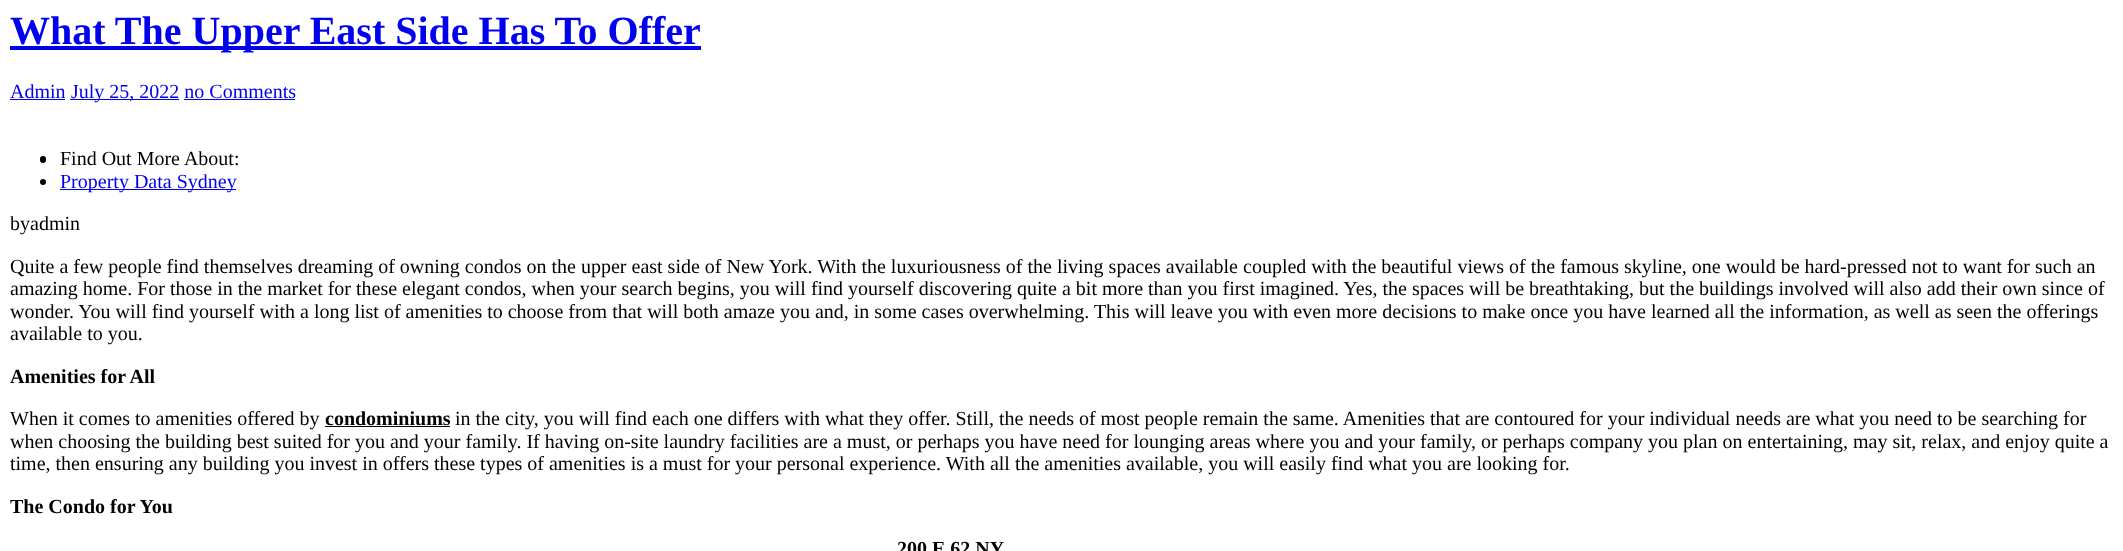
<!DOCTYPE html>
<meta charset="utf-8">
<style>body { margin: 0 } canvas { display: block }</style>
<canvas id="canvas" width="2123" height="551"></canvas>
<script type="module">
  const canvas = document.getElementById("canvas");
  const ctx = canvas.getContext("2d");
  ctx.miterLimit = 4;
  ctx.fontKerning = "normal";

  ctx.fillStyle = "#ffffff";
  ctx.fillRect(0, 0, 2123, 551);
  ctx.fillStyle = "#0000ee";
  ctx.fillRect(10, 46, 691, 4);
  ctx.font = "bold 40px Liberation Serif";
  ctx.fillText("What The Upper East Side Has To Offer", 10, 44);
  ctx.font = "20px Liberation Serif";
  ctx.fillText("Admin", 10, 98);
  ctx.fillRect(10, 99, 55, 1);
  ctx.fillRect(70, 99, 109, 1);
  ctx.fillText("July 25, 2022 no Comments", 71, 98);
  ctx.fillRect(184, 99, 111, 1);
  ctx.fillStyle = "#000000";
  ctx.beginPath();
  ctx.roundRect(40, 156, 6, 7, 3);
  ctx.fill();
  ctx.fillText("Find Out More About:", 60, 165);
  ctx.beginPath();
  ctx.arc(43, 182, 3, 0, Math.PI * 2);
  ctx.fill();
  ctx.fillStyle = "#0000ee";
  ctx.fillRect(60, 189, 176, 1);
  ctx.fillText("Property Data Sydney", 60, 188);
  ctx.fillStyle = "#000000";
  ctx.fillText("byadmin", 10, 230);
  ctx.fillText("Quite a few people find themselves dreaming of owning condos on the upper east side of New York. With the luxuriousness of the living spaces available coupled with the beautiful views of the famous skyline, one would be hard-pressed not to want for such an", 10, 273);
  ctx.fillText("amazing home. For those in the market for these elegant condos, when your search begins, you will find yourself discovering quite a bit more than you first imagined. Yes, the spaces will be breathtaking, but the buildings involved will also add their own since of", 10, 295);
  ctx.fillText("wonder. You will find yourself with a long list of amenities to choose from that will both amaze you and, in some cases overwhelming. This will leave you with even more decisions to make once you have learned all the information, as well as seen the offerings", 10, 318);
  ctx.fillText("available to you.", 10, 340);
  ctx.font = "bold 20px Liberation Serif";
  ctx.fillText("Amenities for All", 10, 383);
  ctx.font = "20px Liberation Serif";
  ctx.fillText("When it comes to amenities offered by", 10, 425);
  ctx.font = "bold 20px Liberation Serif";
  ctx.fillText("condominiums", 325, 425);
  ctx.fillRect(325, 426, 125, 1);
  ctx.font = "20px Liberation Serif";
  ctx.fillText("in the city, you will find each one differs with what they offer. Still, the needs of most people remain the same. Amenities that are contoured for your individual needs are what you need to be searching for", 455, 425);
  ctx.fillText("when choosing the building best suited for you and your family. If having on-site laundry facilities are a must, or perhaps you have need for lounging areas where you and your family, or perhaps company you plan on entertaining, may sit, relax, and enjoy quite a", 10, 448);
  ctx.fillText("time, then ensuring any building you invest in offers these types of amenities is a must for your personal experience. With all the amenities available, you will easily find what you are looking for.", 10, 470);
  ctx.font = "bold 20px Liberation Serif";
  ctx.fillText("The Condo for You", 10, 513);
  ctx.fillText("200 E 62 NY", 897, 555);
</script>
